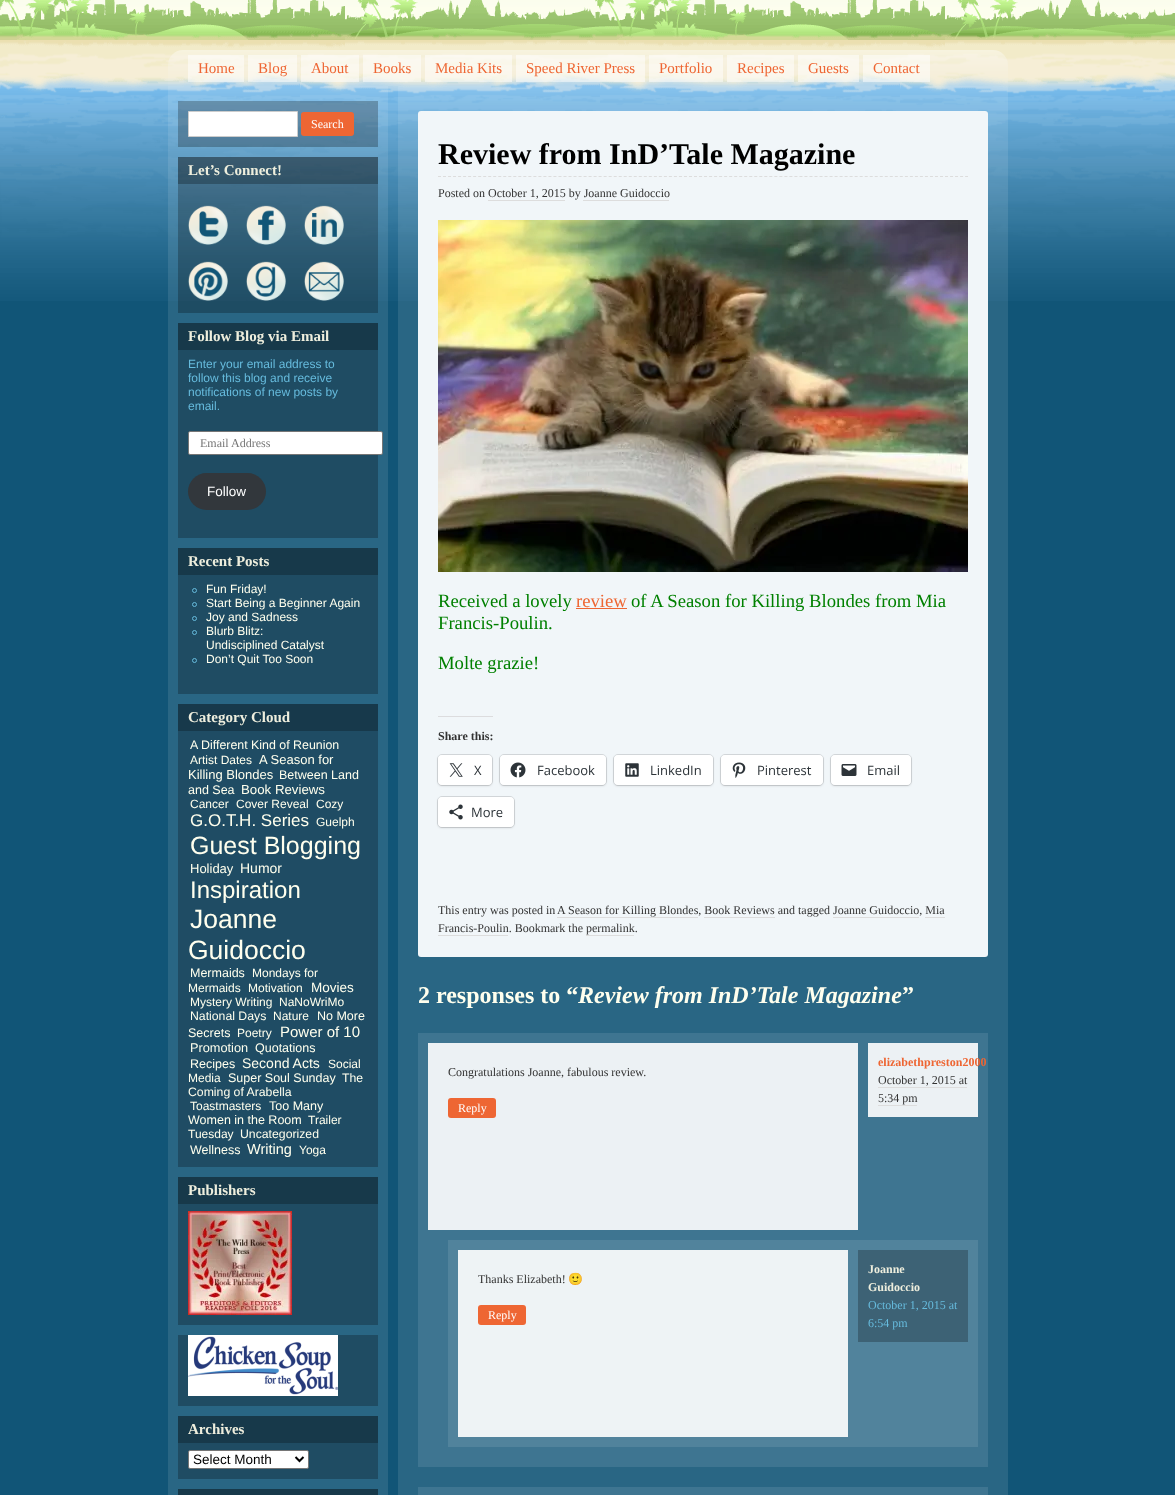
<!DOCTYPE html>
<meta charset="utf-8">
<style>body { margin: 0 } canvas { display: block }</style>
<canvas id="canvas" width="1175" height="1495"></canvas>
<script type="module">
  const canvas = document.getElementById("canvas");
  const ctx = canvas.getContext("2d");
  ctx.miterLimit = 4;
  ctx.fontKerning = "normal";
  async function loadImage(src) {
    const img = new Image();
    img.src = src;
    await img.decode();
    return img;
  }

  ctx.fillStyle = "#115577";
  ctx.fillRect(0, 0, 1175, 1495);
  ctx.drawImage(await loadImage("img1.png"), 0, 0, 1175, 50);
  ctx.drawImage(await loadImage("img2.png"), 0, 50, 1175, 251);
  ctx.drawImage(await loadImage("img3.png"), 168, 50, 840, 36);
  ctx.fillStyle = "rgba(255, 255, 255, 0.5)";
  ctx.fillRect(188, 55, 56, 27);
  ctx.font = "15px Liberation Serif";
  ctx.fillStyle = "#ee6633";
  ctx.fillText("Home", 198, 73);
  ctx.fillStyle = "rgba(255, 255, 255, 0.5)";
  ctx.fillRect(248, 55, 49, 27);
  ctx.fillStyle = "#ee6633";
  ctx.fillText("Blog", 258, 73);
  ctx.fillStyle = "rgba(255, 255, 255, 0.5)";
  ctx.fillRect(301, 55, 58, 27);
  ctx.fillStyle = "#ee6633";
  ctx.fillText("About", 311, 73);
  ctx.fillStyle = "rgba(255, 255, 255, 0.5)";
  ctx.fillRect(363, 55, 58, 27);
  ctx.fillStyle = "#ee6633";
  ctx.fillText("Books", 373, 73);
  ctx.fillStyle = "rgba(255, 255, 255, 0.5)";
  ctx.fillRect(425, 55, 87, 27);
  ctx.fillStyle = "#ee6633";
  ctx.fillText("Media Kits", 435, 73);
  ctx.fillStyle = "rgba(255, 255, 255, 0.5)";
  ctx.fillRect(516, 55, 129, 27);
  ctx.fillStyle = "#ee6633";
  ctx.fillText("Speed River Press", 526, 73);
  ctx.fillStyle = "rgba(255, 255, 255, 0.5)";
  ctx.fillRect(649, 55, 74, 27);
  ctx.fillStyle = "#ee6633";
  ctx.fillText("Portfolio", 659, 73);
  ctx.fillStyle = "rgba(255, 255, 255, 0.5)";
  ctx.fillRect(727, 55, 67, 27);
  ctx.fillStyle = "#ee6633";
  ctx.fillText("Recipes", 737, 73);
  ctx.fillStyle = "rgba(255, 255, 255, 0.5)";
  ctx.fillRect(798, 55, 61, 27);
  ctx.fillStyle = "#ee6633";
  ctx.fillText("Guests", 808, 73);
  ctx.fillStyle = "rgba(255, 255, 255, 0.5)";
  ctx.fillRect(863, 55, 67, 27);
  ctx.fillStyle = "#ee6633";
  ctx.fillText("Contact", 873, 73);
  ctx.fillStyle = "rgba(255, 255, 255, 0.1)";
  ctx.fillRect(168, 86, 220, 1409);
  ctx.fillStyle = "rgba(0, 0, 0, 0.25)";
  ctx.fillRect(178, 101, 200, 46);
  ctx.fillStyle = "#ffffff";
  ctx.beginPath();
  ctx.rect(188.5, 111.5, 109, 25);
  ctx.fill();
  ctx.strokeStyle = "#cccccc";
  ctx.stroke();
  ctx.fillStyle = "#ee6633";
  ctx.beginPath();
  ctx.roundRect(301, 112, 53, 24, 3);
  ctx.fill();
  ctx.font = "12px Liberation Serif";
  ctx.fillStyle = "#ffffff";
  ctx.fillText("Search", 311, 128);
  ctx.fillStyle = "rgba(0, 0, 0, 0.25)";
  ctx.fillRect(178, 157, 200, 156);
  ctx.fillRect(178, 157, 200, 27);
  ctx.font = "bold 15px Liberation Serif";
  ctx.fillStyle = "#eeeedd";
  ctx.fillText("Let’s Connect!", 188, 175);
  ctx.drawImage(await loadImage("img4.png"), 188, 205, 40, 40);
  ctx.drawImage(await loadImage("img5.png"), 246, 205, 40, 40);
  ctx.drawImage(await loadImage("img6.png"), 304, 205, 40, 40);
  ctx.drawImage(await loadImage("img7.png"), 188, 261, 40, 40);
  ctx.drawImage(await loadImage("img8.png"), 246, 261, 40, 40);
  ctx.drawImage(await loadImage("img9.png"), 304, 261, 40, 40);
  ctx.fillStyle = "#1f4c63";
  ctx.fillRect(178, 350, 200, 188);
  ctx.fillStyle = "#17394a";
  ctx.fillRect(178, 323, 200, 27);
  ctx.fillStyle = "#eeeedd";
  ctx.fillText("Follow Blog via Email", 188, 341);
  ctx.font = "12px Liberation Sans";
  ctx.fillStyle = "#66bbdd";
  ctx.fillText("Enter your email address to", 188, 368);
  ctx.fillText("follow this blog and receive", 188, 382);
  ctx.fillText("notifications of new posts by", 188, 396);
  ctx.fillText("email.", 188, 410);
  ctx.fillStyle = "#ffffff";
  ctx.beginPath();
  ctx.roundRect(188.5, 431.5, 194, 23, 1.5);
  ctx.fill();
  ctx.strokeStyle = "#767676";
  ctx.stroke();
  ctx.font = "12px Liberation Serif";
  ctx.fillStyle = "#757575";
  ctx.fillText("Email Address", 200, 447);
  ctx.fillStyle = "#32373c";
  ctx.beginPath();
  ctx.roundRect(188, 473, 78, 37, 18.5);
  ctx.fill();
  ctx.font = "13.5px Liberation Sans";
  ctx.fillStyle = "#ffffff";
  ctx.fillText("Follow", 207, 496);
  ctx.fillStyle = "#1f4c63";
  ctx.fillRect(178, 575, 200, 119);
  ctx.fillStyle = "#17394a";
  ctx.fillRect(178, 548, 200, 27);
  ctx.font = "bold 15px Liberation Serif";
  ctx.fillStyle = "#eeeedd";
  ctx.fillText("Recent Posts", 188, 566);
  ctx.beginPath();
  ctx.arc(194.5, 590.5, 2, 0, Math.PI * 2);
  ctx.strokeStyle = "#66bbdd";
  ctx.stroke();
  ctx.font = "12px Liberation Sans";
  ctx.fillStyle = "#ffffee";
  ctx.fillText("Fun Friday!", 206, 593);
  ctx.beginPath();
  ctx.arc(194.5, 604.5, 2, 0, Math.PI * 2);
  ctx.stroke();
  ctx.fillText("Start Being a Beginner Again", 206, 607);
  ctx.beginPath();
  ctx.arc(194.5, 618.5, 2, 0, Math.PI * 2);
  ctx.stroke();
  ctx.fillText("Joy and Sadness", 206, 621);
  ctx.beginPath();
  ctx.arc(194.5, 632.5, 2, 0, Math.PI * 2);
  ctx.stroke();
  ctx.fillText("Blurb Blitz:", 206, 635);
  ctx.fillText("Undisciplined Catalyst", 206, 649);
  ctx.beginPath();
  ctx.arc(194.5, 660.5, 2, 0, Math.PI * 2);
  ctx.stroke();
  ctx.fillText("Don’t Quit Too Soon", 206, 663);
  ctx.fillStyle = "#1f4c64";
  ctx.fillRect(178, 731, 200, 436);
  ctx.fillStyle = "#17394b";
  ctx.fillRect(178, 704, 200, 27);
  ctx.font = "bold 15px Liberation Serif";
  ctx.fillStyle = "#eeeedd";
  ctx.fillText("Category Cloud", 188, 722);
  ctx.font = "12.4px Liberation Sans";
  ctx.fillStyle = "#ffffee";
  ctx.fillText("A Different Kind of Reunion", 190, 749);
  ctx.font = "12px Liberation Sans";
  ctx.fillText("Artist Dates", 190, 764);
  ctx.font = "13px Liberation Sans";
  ctx.fillText("A Season for", 259, 764);
  ctx.fillText("Killing Blondes", 188, 779);
  ctx.font = "12.5px Liberation Sans";
  ctx.fillText("Between Land", 279, 779);
  ctx.fillText("and Sea", 188, 794);
  ctx.font = "13.25px Liberation Sans";
  ctx.fillText("Book Reviews", 241, 794);
  ctx.font = "12px Liberation Sans";
  ctx.fillText("Cancer", 190, 808);
  ctx.fillText("Cover Reveal", 236, 808);
  ctx.fillText("Cozy", 316, 808);
  ctx.font = "17px Liberation Sans";
  ctx.fillText("G.O.T.H. Series", 190, 826);
  ctx.font = "12px Liberation Sans";
  ctx.fillText("Guelph", 316, 826);
  ctx.font = "25px Liberation Sans";
  ctx.fillText("Guest Blogging", 190, 854);
  ctx.font = "13px Liberation Sans";
  ctx.fillText("Holiday", 190, 873);
  ctx.font = "14px Liberation Sans";
  ctx.fillText("Humor", 240, 873);
  ctx.font = "24px Liberation Sans";
  ctx.fillText("Inspiration", 190, 898);
  ctx.font = "26.5px Liberation Sans";
  ctx.fillText("Joanne", 190, 928);
  ctx.fillText("Guidoccio", 188, 959);
  ctx.font = "12.5px Liberation Sans";
  ctx.fillText("Mermaids", 190, 977);
  ctx.font = "12px Liberation Sans";
  ctx.fillText("Mondays for", 252, 977);
  ctx.fillText("Mermaids", 188, 992);
  ctx.fillText("Motivation", 248, 992);
  ctx.font = "13.5px Liberation Sans";
  ctx.fillText("Movies", 311, 992);
  ctx.font = "12px Liberation Sans";
  ctx.fillText("Mystery Writing", 190, 1006);
  ctx.fillText("NaNoWriMo", 279, 1006);
  ctx.font = "12.25px Liberation Sans";
  ctx.fillText("National Days", 190, 1020);
  ctx.font = "12px Liberation Sans";
  ctx.fillText("Nature", 273, 1020);
  ctx.font = "12.5px Liberation Sans";
  ctx.fillText("No More", 317, 1020);
  ctx.fillText("Secrets", 188, 1037);
  ctx.font = "12px Liberation Sans";
  ctx.fillText("Poetry", 237, 1037);
  ctx.font = "15px Liberation Sans";
  ctx.fillText("Power of 10", 280, 1037);
  ctx.font = "12.75px Liberation Sans";
  ctx.fillText("Promotion", 190, 1052);
  ctx.font = "12.5px Liberation Sans";
  ctx.fillText("Quotations", 255, 1052);
  ctx.fillText("Recipes", 190, 1068);
  ctx.font = "14px Liberation Sans";
  ctx.fillText("Second Acts", 242, 1068);
  ctx.font = "12px Liberation Sans";
  ctx.fillText("Social", 328, 1068);
  ctx.fillText("Media", 188, 1082);
  ctx.font = "12.5px Liberation Sans";
  ctx.fillText("Super Soul Sunday", 228, 1082);
  ctx.font = "12.25px Liberation Sans";
  ctx.fillText("The", 342, 1082);
  ctx.fillText("Coming of Arabella", 188, 1096);
  ctx.font = "12px Liberation Sans";
  ctx.fillText("Toastmasters", 190, 1110);
  ctx.font = "12.5px Liberation Sans";
  ctx.fillText("Too Many", 269, 1110);
  ctx.fillText("Women in the Room", 188, 1124);
  ctx.font = "12px Liberation Sans";
  ctx.fillText("Trailer", 308, 1124);
  ctx.fillText("Tuesday", 188, 1138);
  ctx.font = "12.25px Liberation Sans";
  ctx.fillText("Uncategorized", 240, 1138);
  ctx.font = "12.5px Liberation Sans";
  ctx.fillText("Wellness", 190, 1154);
  ctx.font = "14.5px Liberation Sans";
  ctx.fillText("Writing", 247, 1154);
  ctx.font = "12px Liberation Sans";
  ctx.fillText("Yoga", 299, 1154);
  ctx.fillStyle = "#1f4c63";
  ctx.fillRect(178, 1204, 200, 121);
  ctx.fillStyle = "#17394a";
  ctx.fillRect(178, 1177, 200, 27);
  ctx.font = "bold 15px Liberation Serif";
  ctx.fillStyle = "#eeeedd";
  ctx.fillText("Publishers", 188, 1195);
  ctx.drawImage(await loadImage("img10.png"), 188, 1211, 104, 104);
  ctx.fillStyle = "#1f4c63";
  ctx.fillRect(178, 1335, 200, 71);
  ctx.drawImage(await loadImage("img11.png"), 188, 1335, 150, 61);
  ctx.fillRect(178, 1443, 200, 36);
  ctx.fillStyle = "#17394a";
  ctx.fillRect(178, 1416, 200, 27);
  ctx.fillStyle = "#eeeedd";
  ctx.fillText("Archives", 188, 1434);
  ctx.fillStyle = "#ffffff";
  ctx.beginPath();
  ctx.roundRect(188.5, 1450.5, 120, 18, 1.5);
  ctx.fill();
  ctx.strokeStyle = "#767676";
  ctx.stroke();
  ctx.beginPath();
  ctx.moveTo(295.5, 1457);
  ctx.lineTo(299.5, 1461);
  ctx.lineTo(303.5, 1457);
  ctx.strokeStyle = "#000000";
  ctx.lineWidth = 2;
  ctx.stroke();
  ctx.font = "13.5px Liberation Sans";
  ctx.fillStyle = "#000000";
  ctx.fillText("Select Month", 193, 1464);
  ctx.fillStyle = "#17394a";
  ctx.fillRect(178, 1489, 200, 6);
  ctx.fillStyle = "rgba(255, 255, 255, 0.1)";
  ctx.fillRect(398, 86, 610, 1409);
  ctx.fillStyle = "#f1f6f9";
  ctx.beginPath();
  ctx.roundRect(418, 111, 570, 846, 3);
  ctx.fill();
  ctx.beginPath();
  ctx.moveTo(438, 176.5);
  ctx.lineTo(968, 176.5);
  ctx.strokeStyle = "#dddddd";
  ctx.lineWidth = 1;
  ctx.setLineDash([3, 2.02]);
  ctx.stroke();
  ctx.font = "bold 30px Liberation Serif";
  ctx.fillStyle = "#000000";
  ctx.fillText("Review from InD’Tale Magazine", 438, 164);
  ctx.font = "12px Liberation Serif";
  ctx.fillStyle = "#333333";
  ctx.fillText("Posted on October 1, 2015 by Joanne Guidoccio", 438, 197);
  ctx.fillStyle = "#dddddd";
  ctx.fillRect(488, 200, 77, 1);
  ctx.fillRect(583, 200, 86, 1);
  ctx.drawImage(await loadImage("img12.png"), 438, 220, 530, 352);
  ctx.font = "18.7px Liberation Serif";
  ctx.fillStyle = "#008000";
  ctx.fillText("Received a lovely", 438, 607);
  ctx.fillStyle = "#ee6633";
  ctx.fillText("review", 576, 607);
  ctx.fillRect(576, 608, 51, 1);
  ctx.fillStyle = "#008000";
  ctx.fillText("of A Season for Killing Blondes from Mia", 631, 607);
  ctx.fillText("Francis-Poulin.", 438, 629);
  ctx.fillText("Molte grazie!", 438, 669);
  ctx.fillStyle = "#dcdcde";
  ctx.fillRect(438, 716, 55, 1);
  ctx.font = "bold 12px Liberation Serif";
  ctx.fillStyle = "#333333";
  ctx.fillText("Share this:", 438, 740);
  ctx.beginPath();
  ctx.roundRect(437.5, 754.5, 55, 31, 4.5);
  ctx.strokeStyle = "#d4d8db";
  ctx.setLineDash([]);
  ctx.stroke();
  ctx.fillStyle = "rgba(0, 0, 0, 0.12)";
  ctx.filter = "blur(1px)";
  ctx.beginPath();
  ctx.roundRect(438, 756, 54, 30, 4);
  ctx.fill();
  ctx.filter = "none";
  ctx.fillStyle = "#ffffff";
  ctx.beginPath();
  ctx.roundRect(438, 755, 54, 30, 4);
  ctx.fill();
  ctx.drawImage(await loadImage("img13.png"), 449, 763, 14, 14);
  ctx.font = "13px Open Sans";
  ctx.fillStyle = "#2c3338";
  ctx.fillText("X", 474, 775);
  ctx.beginPath();
  ctx.roundRect(499.5, 754.5, 107, 31, 4.5);
  ctx.stroke();
  ctx.fillStyle = "rgba(0, 0, 0, 0.12)";
  ctx.filter = "blur(1px)";
  ctx.beginPath();
  ctx.roundRect(500, 756, 106, 30, 4);
  ctx.fill();
  ctx.filter = "none";
  ctx.fillStyle = "#ffffff";
  ctx.beginPath();
  ctx.roundRect(500, 755, 106, 30, 4);
  ctx.fill();
  ctx.drawImage(await loadImage("img14.png"), 510, 762, 16, 16);
  ctx.fillStyle = "#2c3338";
  ctx.fillText("Facebook", 537, 775);
  ctx.beginPath();
  ctx.roundRect(613.5, 754.5, 100, 31, 4.5);
  ctx.stroke();
  ctx.fillStyle = "rgba(0, 0, 0, 0.12)";
  ctx.filter = "blur(1px)";
  ctx.beginPath();
  ctx.roundRect(614, 756, 99, 30, 4);
  ctx.fill();
  ctx.filter = "none";
  ctx.fillStyle = "#ffffff";
  ctx.beginPath();
  ctx.roundRect(614, 755, 99, 30, 4);
  ctx.fill();
  ctx.drawImage(await loadImage("img15.png"), 625, 763, 14, 14);
  ctx.fillStyle = "#2c3338";
  ctx.fillText("LinkedIn", 650, 775);
  ctx.beginPath();
  ctx.roundRect(720.5, 754.5, 103, 31, 4.5);
  ctx.stroke();
  ctx.fillStyle = "rgba(0, 0, 0, 0.12)";
  ctx.filter = "blur(1px)";
  ctx.beginPath();
  ctx.roundRect(721, 756, 102, 30, 4);
  ctx.fill();
  ctx.filter = "none";
  ctx.fillStyle = "#ffffff";
  ctx.beginPath();
  ctx.roundRect(721, 755, 102, 30, 4);
  ctx.fill();
  ctx.drawImage(await loadImage("img16.png"), 732, 762, 14, 16);
  ctx.fillStyle = "#2c3338";
  ctx.fillText("Pinterest", 757, 775);
  ctx.beginPath();
  ctx.roundRect(830.5, 754.5, 81, 31, 4.5);
  ctx.stroke();
  ctx.fillStyle = "rgba(0, 0, 0, 0.12)";
  ctx.filter = "blur(1px)";
  ctx.beginPath();
  ctx.roundRect(831, 756, 80, 30, 4);
  ctx.fill();
  ctx.filter = "none";
  ctx.fillStyle = "#ffffff";
  ctx.beginPath();
  ctx.roundRect(831, 755, 80, 30, 4);
  ctx.fill();
  ctx.drawImage(await loadImage("img17.png"), 841, 764, 16, 12);
  ctx.fillStyle = "#2c3338";
  ctx.fillText("Email", 867, 775);
  ctx.beginPath();
  ctx.roundRect(437.5, 796.5, 77, 31, 4.5);
  ctx.stroke();
  ctx.fillStyle = "rgba(0, 0, 0, 0.12)";
  ctx.filter = "blur(1px)";
  ctx.beginPath();
  ctx.roundRect(438, 798, 76, 30, 4);
  ctx.fill();
  ctx.filter = "none";
  ctx.fillStyle = "#ffffff";
  ctx.beginPath();
  ctx.roundRect(438, 797, 76, 30, 4);
  ctx.fill();
  ctx.drawImage(await loadImage("img18.png"), 449, 804, 14, 16);
  ctx.fillStyle = "#2c3338";
  ctx.fillText("More", 471, 817);
  ctx.font = "12px Liberation Serif";
  ctx.fillStyle = "#333333";
  ctx.fillText("This entry was posted in", 438, 914);
  ctx.fillText("A Season for Killing Blondes, Book Reviews and tagged Joanne Guidoccio, Mia", 557, 914);
  ctx.fillStyle = "#dddddd";
  ctx.fillRect(557, 917, 141, 1);
  ctx.fillRect(704, 917, 71, 1);
  ctx.fillRect(833, 917, 86, 1);
  ctx.fillStyle = "#333333";
  ctx.fillText("Francis-Poulin. Bookmark the permalink.", 438, 932);
  ctx.fillStyle = "#dddddd";
  ctx.fillRect(925, 917, 20, 1);
  ctx.fillRect(438, 935, 70, 1);
  ctx.fillRect(586, 935, 48, 1);
  ctx.font = "bold 24px Liberation Serif";
  ctx.fillStyle = "#ffffee";
  ctx.fillText("2 responses to “", 418, 1003);
  ctx.font = "italic bold 24px Liberation Serif";
  ctx.fillText("Review from InD’Tale Magazine", 578, 1003);
  ctx.font = "bold 24px Liberation Serif";
  ctx.fillText("”", 902, 1003);
  ctx.fillStyle = "#3e7591";
  ctx.fillRect(418, 1033, 570, 434);
  ctx.fillStyle = "#ecf1f4";
  ctx.fillRect(428, 1043, 430, 187);
  ctx.font = "12px Liberation Serif";
  ctx.fillStyle = "#333333";
  ctx.fillText("Congratulations Joanne, fabulous review.", 448, 1076);
  ctx.fillStyle = "#ee6633";
  ctx.beginPath();
  ctx.roundRect(448, 1098, 48, 20, 3);
  ctx.fill();
  ctx.fillStyle = "#ffffff";
  ctx.fillText("Reply", 458, 1112);
  ctx.fillStyle = "#ecf1f4";
  ctx.fillRect(868, 1043, 110, 74);
  ctx.font = "bold 12px Liberation Serif";
  ctx.fillStyle = "#ee6633";
  ctx.fillText("elizabethpreston2000", 878, 1066);
  ctx.font = "12px Liberation Serif";
  ctx.fillStyle = "#333333";
  ctx.fillText("October 1, 2015 at", 878, 1084);
  ctx.fillStyle = "#dddddd";
  ctx.fillRect(878, 1087, 89, 1);
  ctx.fillStyle = "#333333";
  ctx.fillText("5:34 pm", 878, 1102);
  ctx.fillStyle = "#dddddd";
  ctx.fillRect(878, 1105, 39, 1);
  ctx.fillStyle = "#51839c";
  ctx.fillRect(448, 1240, 530, 207);
  ctx.fillStyle = "#eef3f5";
  ctx.fillRect(458, 1250, 390, 187);
  ctx.fillStyle = "#333333";
  ctx.fillText("Thanks Elizabeth!", 478, 1283);
  ctx.font = "12px Noto Color Emoji";
  ctx.fillText("🙂", 568, 1283);
  ctx.fillStyle = "#ee6633";
  ctx.beginPath();
  ctx.roundRect(478, 1305, 48, 20, 3);
  ctx.fill();
  ctx.font = "12px Liberation Serif";
  ctx.fillStyle = "#ffffff";
  ctx.fillText("Reply", 488, 1319);
  ctx.fillStyle = "#3d6275";
  ctx.fillRect(858, 1250, 110, 92);
  ctx.font = "bold 12px Liberation Serif";
  ctx.fillStyle = "#eeeedd";
  ctx.fillText("Joanne", 868, 1273);
  ctx.fillText("Guidoccio", 868, 1291);
  ctx.font = "12px Liberation Serif";
  ctx.fillStyle = "#66bbdd";
  ctx.fillText("October 1, 2015 at", 868, 1309);
  ctx.fillText("6:54 pm", 868, 1327);
  ctx.fillStyle = "#3e7591";
  ctx.fillRect(418, 1487, 570, 8);
</script>
